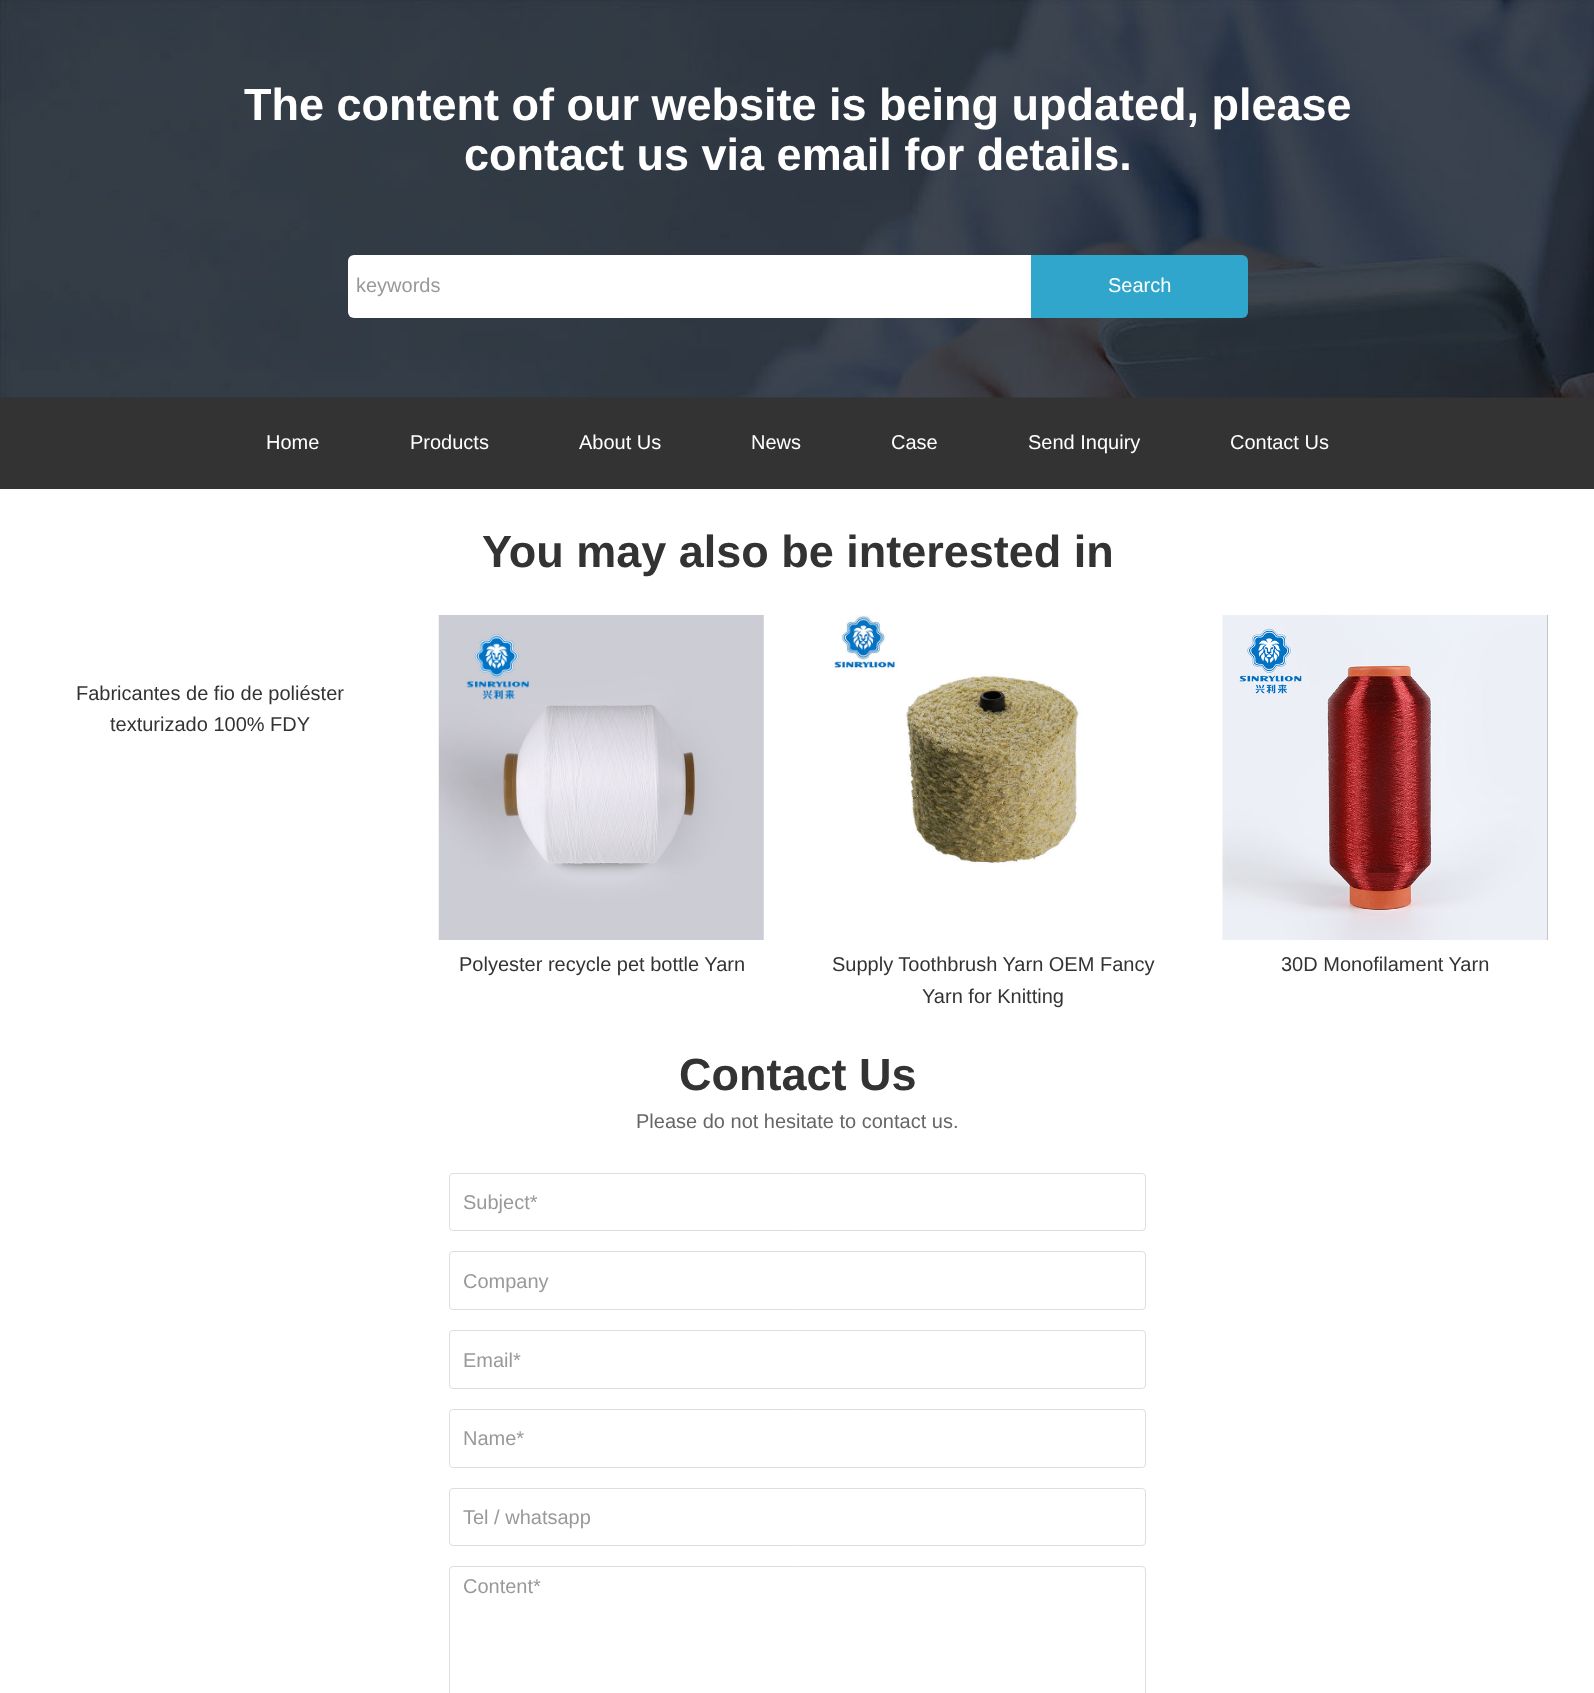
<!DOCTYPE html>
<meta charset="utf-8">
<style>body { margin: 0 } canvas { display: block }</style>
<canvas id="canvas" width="1594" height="1693"></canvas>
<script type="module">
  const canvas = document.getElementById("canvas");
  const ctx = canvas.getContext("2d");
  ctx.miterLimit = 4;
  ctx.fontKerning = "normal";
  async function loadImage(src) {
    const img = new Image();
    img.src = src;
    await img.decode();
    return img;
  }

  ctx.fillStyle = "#ffffff";
  ctx.fillRect(0, 0, 1594, 1693);
  ctx.fillStyle = "#333333";
  ctx.fillRect(0, 397, 1594, 92);
  ctx.drawImage(await loadImage("img1.png"), 0, 0, 1594, 398);
  ctx.font = "bold 45px Liberation Sans";
  ctx.fillStyle = "#ffffff";
  ctx.fillText("The content of our website is being updated, please", 244, 120);
  ctx.fillText("contact us via email for details.", 464, 170);
  ctx.beginPath();
  ctx.roundRect(348, 255, 683, 63, [6, 0, 0, 6]);
  ctx.fill();
  ctx.font = "20px Liberation Sans";
  ctx.fillStyle = "#999999";
  ctx.fillText("keywords", 356, 292);
  ctx.fillStyle = "#31a6cc";
  ctx.beginPath();
  ctx.roundRect(1031, 255, 217, 63, [0, 6, 6, 0]);
  ctx.fill();
  ctx.fillStyle = "#ffffff";
  ctx.fillText("Search", 1108, 292);
  ctx.fillText("Home", 266, 449);
  ctx.fillText("Products", 410, 449);
  ctx.fillText("About Us", 579, 449);
  ctx.fillText("News", 751, 449);
  ctx.fillText("Case", 891, 449);
  ctx.fillText("Send Inquiry", 1028, 449);
  ctx.fillText("Contact Us", 1230, 449);
  ctx.font = "bold 45px Liberation Sans";
  ctx.fillStyle = "#333333";
  ctx.fillText("You may also be interested in", 482, 567);
  ctx.font = "20px Liberation Sans";
  ctx.fillText("Fabricantes de fio de poliéster", 76, 700);
  ctx.fillText("texturizado 100% FDY", 110, 731);
  ctx.drawImage(await loadImage("img2.png"), 438, 615, 326, 325);
  ctx.fillText("Polyester recycle pet bottle Yarn", 459, 971);
  ctx.drawImage(await loadImage("img3.png"), 831, 615, 325, 325);
  ctx.fillText("Supply Toothbrush Yarn OEM Fancy", 832, 971);
  ctx.fillText("Yarn for Knitting", 922, 1003);
  ctx.fillStyle = "#999999";
  ctx.fillRect(1547, 615, 1, 325);
  ctx.drawImage(await loadImage("img4.png"), 1222, 615, 326, 325);
  ctx.fillStyle = "#333333";
  ctx.fillText("30D Monofilament Yarn", 1281, 971);
  ctx.font = "bold 45px Liberation Sans";
  ctx.fillText("Contact Us", 679, 1090);
  ctx.font = "20px Liberation Sans";
  ctx.fillStyle = "#666666";
  ctx.fillText("Please do not hesitate to contact us.", 636, 1128);
  ctx.beginPath();
  ctx.roundRect(449.5, 1173.5, 696, 57, 3.5);
  ctx.strokeStyle = "#dedede";
  ctx.stroke();
  ctx.fillStyle = "#999999";
  ctx.fillText("Subject*", 463, 1209);
  ctx.beginPath();
  ctx.roundRect(449.5, 1251.5, 696, 58, 3.5);
  ctx.stroke();
  ctx.fillText("Company", 463, 1288);
  ctx.beginPath();
  ctx.roundRect(449.5, 1330.5, 696, 58, 3.5);
  ctx.stroke();
  ctx.fillText("Email*", 463, 1367);
  ctx.beginPath();
  ctx.roundRect(449.5, 1409.5, 696, 58, 3.5);
  ctx.stroke();
  ctx.fillText("Name*", 463, 1445);
  ctx.beginPath();
  ctx.roundRect(449.5, 1488.5, 696, 57, 3.5);
  ctx.stroke();
  ctx.fillText("Tel / whatsapp", 463, 1524);
  ctx.beginPath();
  ctx.roundRect(449.5, 1566.5, 696, 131, 3.5);
  ctx.stroke();
  ctx.fillText("Content*", 463, 1593);
</script>
